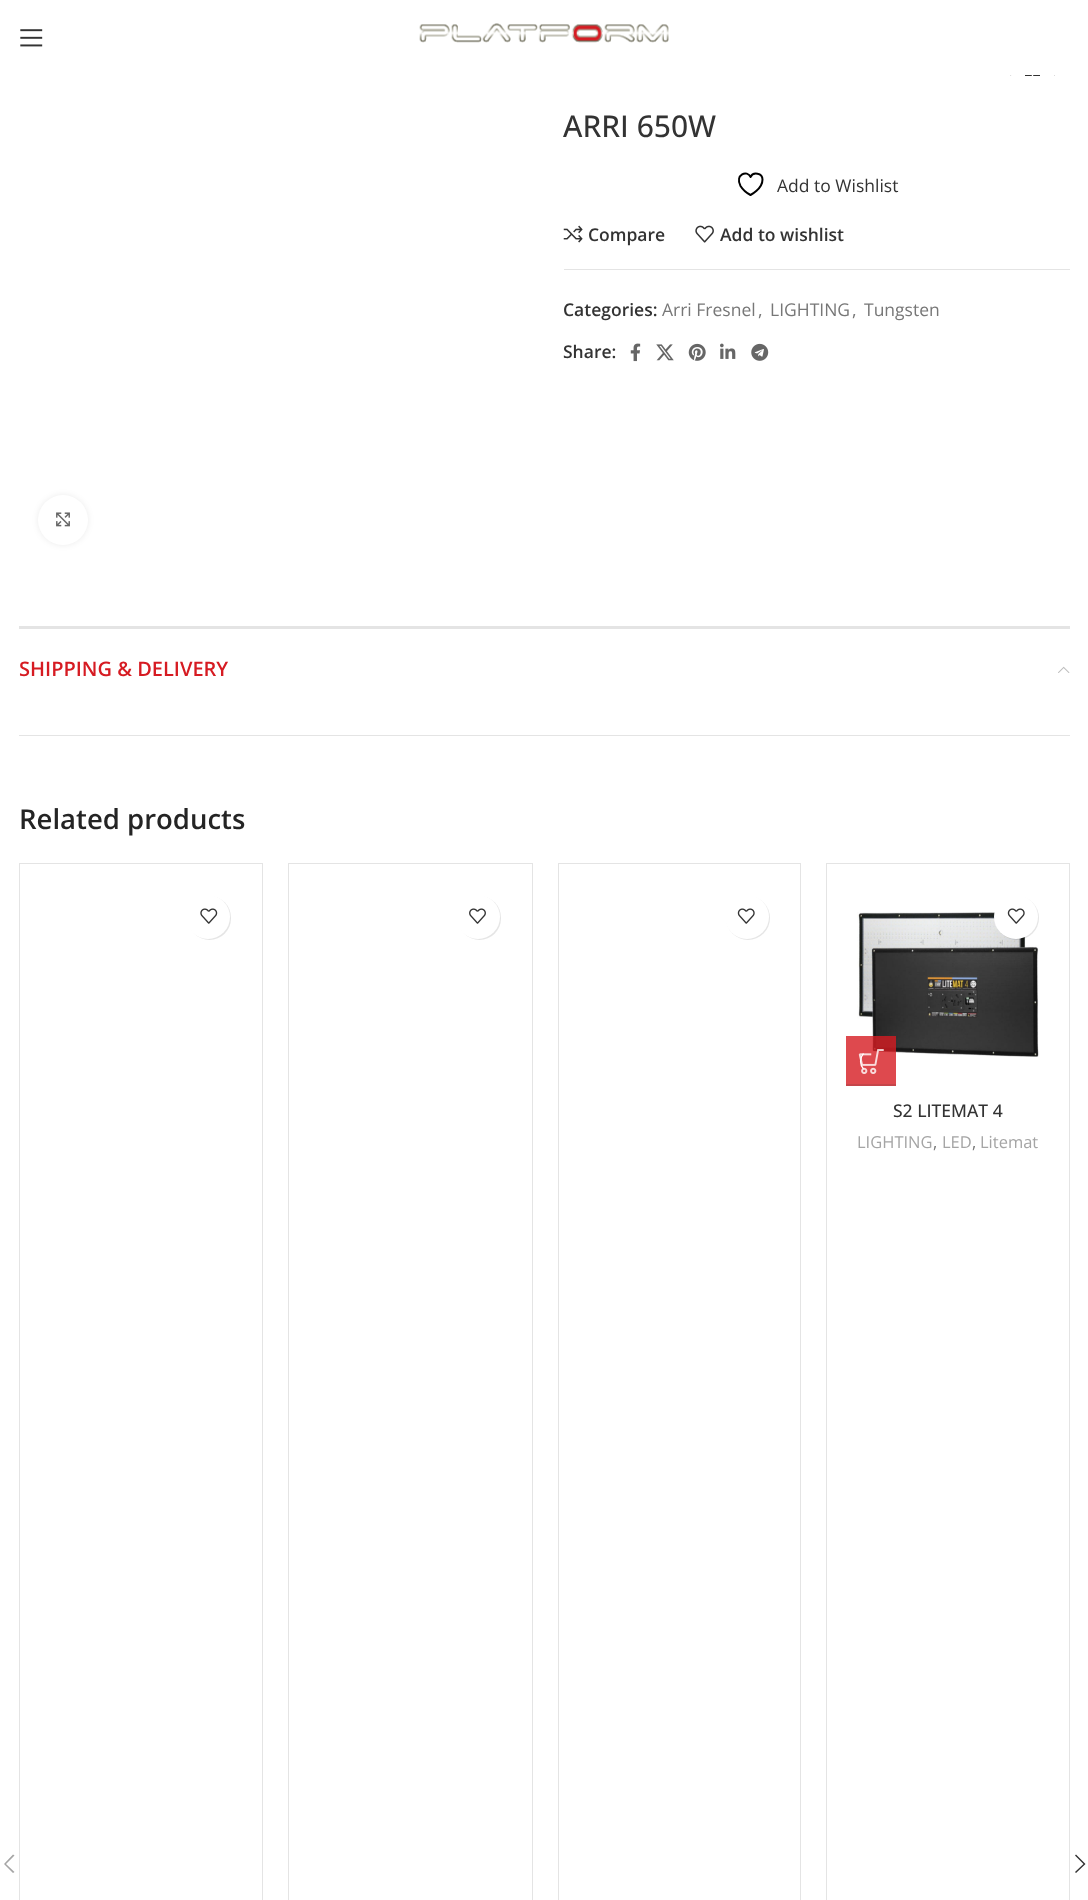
<!DOCTYPE html>
<meta charset="utf-8">
<style>body { margin: 0 } canvas { display: block }</style>
<canvas id="canvas" width="1088" height="1900"></canvas>
<script type="module">
  const canvas = document.getElementById("canvas");
  const ctx = canvas.getContext("2d");
  ctx.miterLimit = 4;
  ctx.fontKerning = "normal";
  async function loadImage(src) {
    const img = new Image();
    img.src = src;
    await img.decode();
    return img;
  }

  ctx.fillStyle = "#ffffff";
  ctx.fillRect(0, 0, 1088, 1900);
  ctx.drawImage(await loadImage("img1.png"), 20, 29, 23, 18);
  ctx.drawImage(await loadImage("img2.png"), 419, 23, 250, 20);
  ctx.drawImage(await loadImage("img3.png"), 1010, 75, 2, 1);
  ctx.drawImage(await loadImage("img4.png"), 1025, 75, 15, 1);
  ctx.drawImage(await loadImage("img5.png"), 1054, 75, 1, 1);
  ctx.font = "500 30px Open Sans";
  ctx.fillStyle = "#333333";
  ctx.fillText("ARRI 650W", 563, 137);
  ctx.beginPath();
  ctx.moveTo(762.5, 179.5);
  ctx.bezierCurveTo(762.5, 173, 753, 171.5, 750.5, 177);
  ctx.bezierCurveTo(747.5, 169.5, 734.5, 174.5, 740.5, 186);
  ctx.bezierCurveTo(743, 190, 746.5, 193, 750.5, 195);
  ctx.bezierCurveTo(750.5, 195, 762.5, 189, 762.5, 179.5);
  ctx.closePath();
  ctx.strokeStyle = "#000000";
  ctx.lineWidth = 2;
  ctx.lineCap = "round";
  ctx.lineJoin = "round";
  ctx.stroke();
  ctx.font = "17.5px Open Sans";
  ctx.fillText("Add to Wishlist", 777, 192);
  ctx.drawImage(await loadImage("img6.png"), 563, 225, 20, 18);
  ctx.font = "600 17.5px Open Sans";
  ctx.fillText("Compare", 588, 241);
  ctx.drawImage(await loadImage("img7.png"), 695, 225, 19, 18);
  ctx.fillText("Add to wishlist", 720, 241);
  ctx.fillStyle = "#e4e4e4";
  ctx.fillRect(564, 269, 506, 1);
  ctx.fillStyle = "#333333";
  ctx.fillText("Categories:", 563, 316);
  ctx.font = "17.5px Open Sans";
  ctx.fillStyle = "#777777";
  ctx.fillText("Arri Fresnel", 662, 316);
  ctx.fillText(",", 758, 316);
  ctx.fillText("LIGHTING", 770, 316);
  ctx.fillText(",", 852, 316);
  ctx.fillText("Tungsten", 864, 316);
  ctx.font = "600 17.5px Open Sans";
  ctx.fillStyle = "#333333";
  ctx.fillText("Share:", 563, 358);
  ctx.drawImage(await loadImage("img8.png"), 630, 343, 11, 19);
  ctx.drawImage(await loadImage("img9.png"), 656, 344, 18, 17);
  ctx.drawImage(await loadImage("img10.png"), 688, 343, 18, 18);
  ctx.drawImage(await loadImage("img11.png"), 720, 343, 16, 16);
  ctx.drawImage(await loadImage("img12.png"), 751, 343, 18, 18);
  ctx.fillStyle = "rgba(0, 0, 0, 0.08)";
  ctx.filter = "blur(3px)";
  ctx.beginPath();
  ctx.roundRect(38, 495, 50, 50, 25);
  ctx.fill();
  ctx.filter = "none";
  ctx.fillStyle = "#ffffff";
  ctx.beginPath();
  ctx.arc(63, 520, 25, 0, Math.PI * 2);
  ctx.fill();
  ctx.drawImage(await loadImage("img13.png"), 56, 512, 14, 15);
  ctx.fillStyle = "#e4e4e4";
  ctx.fillRect(19, 626, 1051, 3);
  ctx.fillRect(19, 735, 1051, 1);
  ctx.font = "600 20px Open Sans";
  ctx.fillStyle = "#d61b22";
  ctx.fillText("SHIPPING & DELIVERY", 19, 676);
  ctx.drawImage(await loadImage("img14.png"), 1058, 666, 12, 7);
  ctx.font = "600 27.5px Open Sans";
  ctx.fillStyle = "#242424";
  ctx.fillText("Related products", 19, 829);
  ctx.strokeStyle = "#e4e4e4";
  ctx.lineWidth = 1;
  ctx.lineJoin = "miter";
  ctx.strokeRect(19.5, 863.5, 243, 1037);
  ctx.fillStyle = "rgba(0, 0, 0, 0.1)";
  ctx.filter = "blur(0.5px)";
  ctx.beginPath();
  ctx.roundRect(188, 896, 43, 44, 21.5);
  ctx.fill();
  ctx.filter = "none";
  ctx.fillStyle = "#ffffff";
  ctx.beginPath();
  ctx.arc(208, 917, 22, 0, Math.PI * 2);
  ctx.fill();
  ctx.drawImage(await loadImage("img15.png"), 200, 908, 18, 16);
  ctx.strokeRect(288.5, 863.5, 244, 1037);
  ctx.fillStyle = "rgba(0, 0, 0, 0.1)";
  ctx.filter = "blur(0.5px)";
  ctx.beginPath();
  ctx.roundRect(458, 896, 43, 44, 21.5);
  ctx.fill();
  ctx.filter = "none";
  ctx.fillStyle = "#ffffff";
  ctx.beginPath();
  ctx.arc(478, 917, 22, 0, Math.PI * 2);
  ctx.fill();
  ctx.drawImage(await loadImage("img16.png"), 469, 908, 17, 16);
  ctx.strokeRect(558.5, 863.5, 242, 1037);
  ctx.fillStyle = "rgba(0, 0, 0, 0.1)";
  ctx.filter = "blur(0.5px)";
  ctx.beginPath();
  ctx.roundRect(726, 896, 44, 44, 22);
  ctx.fill();
  ctx.filter = "none";
  ctx.fillStyle = "#ffffff";
  ctx.beginPath();
  ctx.arc(747, 917, 22, 0, Math.PI * 2);
  ctx.fill();
  ctx.drawImage(await loadImage("img17.png"), 737, 908, 18, 16);
  ctx.strokeRect(826.5, 863.5, 243, 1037);
  ctx.drawImage(await loadImage("img18.png"), 857, 911, 182, 146);
  ctx.fillStyle = "rgba(0, 0, 0, 0.1)";
  ctx.filter = "blur(0.5px)";
  ctx.beginPath();
  ctx.roundRect(995, 896, 44, 44, 22);
  ctx.fill();
  ctx.filter = "none";
  ctx.fillStyle = "#ffffff";
  ctx.beginPath();
  ctx.arc(1016, 917, 22, 0, Math.PI * 2);
  ctx.fill();
  ctx.drawImage(await loadImage("img17.png"), 1007, 908, 18, 16);
  ctx.fillStyle = "rgba(214, 27, 34, 0.8)";
  ctx.fillRect(846, 1036, 50, 48);
  ctx.fillStyle = "#c5454a";
  ctx.fillRect(846, 1084, 50, 2);
  ctx.drawImage(await loadImage("img19.png"), 858, 1049, 26, 25);
  ctx.beginPath();
  ctx.moveTo(863.5, 1069);
  ctx.bezierCurveTo(859.5, 1064.5, 859.5, 1058, 863.5, 1053.5);
  ctx.strokeStyle = "#ffffff";
  ctx.lineWidth = 1.2;
  ctx.lineCap = "butt";
  ctx.stroke();
  ctx.font = "500 17.5px Open Sans";
  ctx.fillStyle = "#333333";
  ctx.fillText("S2 LITEMAT 4", 893, 1117);
  ctx.font = "16.5px Open Sans";
  ctx.fillStyle = "#a5a5a5";
  ctx.fillText("LIGHTING", 857, 1148);
  ctx.fillText("LED", 942, 1148);
  ctx.fillText("Litemat", 980, 1148);
  ctx.fillStyle = "#777777";
  ctx.fillText(",", 933, 1148);
  ctx.fillText(",", 972, 1148);
  ctx.fillStyle = "#a5a5a5";
  ctx.beginPath();
  ctx.moveTo(14.5, 1855.5);
  ctx.lineTo(13, 1854.5);
  ctx.lineTo(4, 1864);
  ctx.lineTo(13, 1873);
  ctx.lineTo(14.5, 1872);
  ctx.lineTo(6, 1864);
  ctx.closePath();
  ctx.fill();
  ctx.fillStyle = "#333333";
  ctx.beginPath();
  ctx.moveTo(1075, 1855.5);
  ctx.lineTo(1083.5, 1864);
  ctx.lineTo(1075, 1872);
  ctx.lineTo(1076, 1873);
  ctx.lineTo(1085.5, 1864);
  ctx.lineTo(1076, 1854.5);
  ctx.closePath();
  ctx.fill();
</script>
